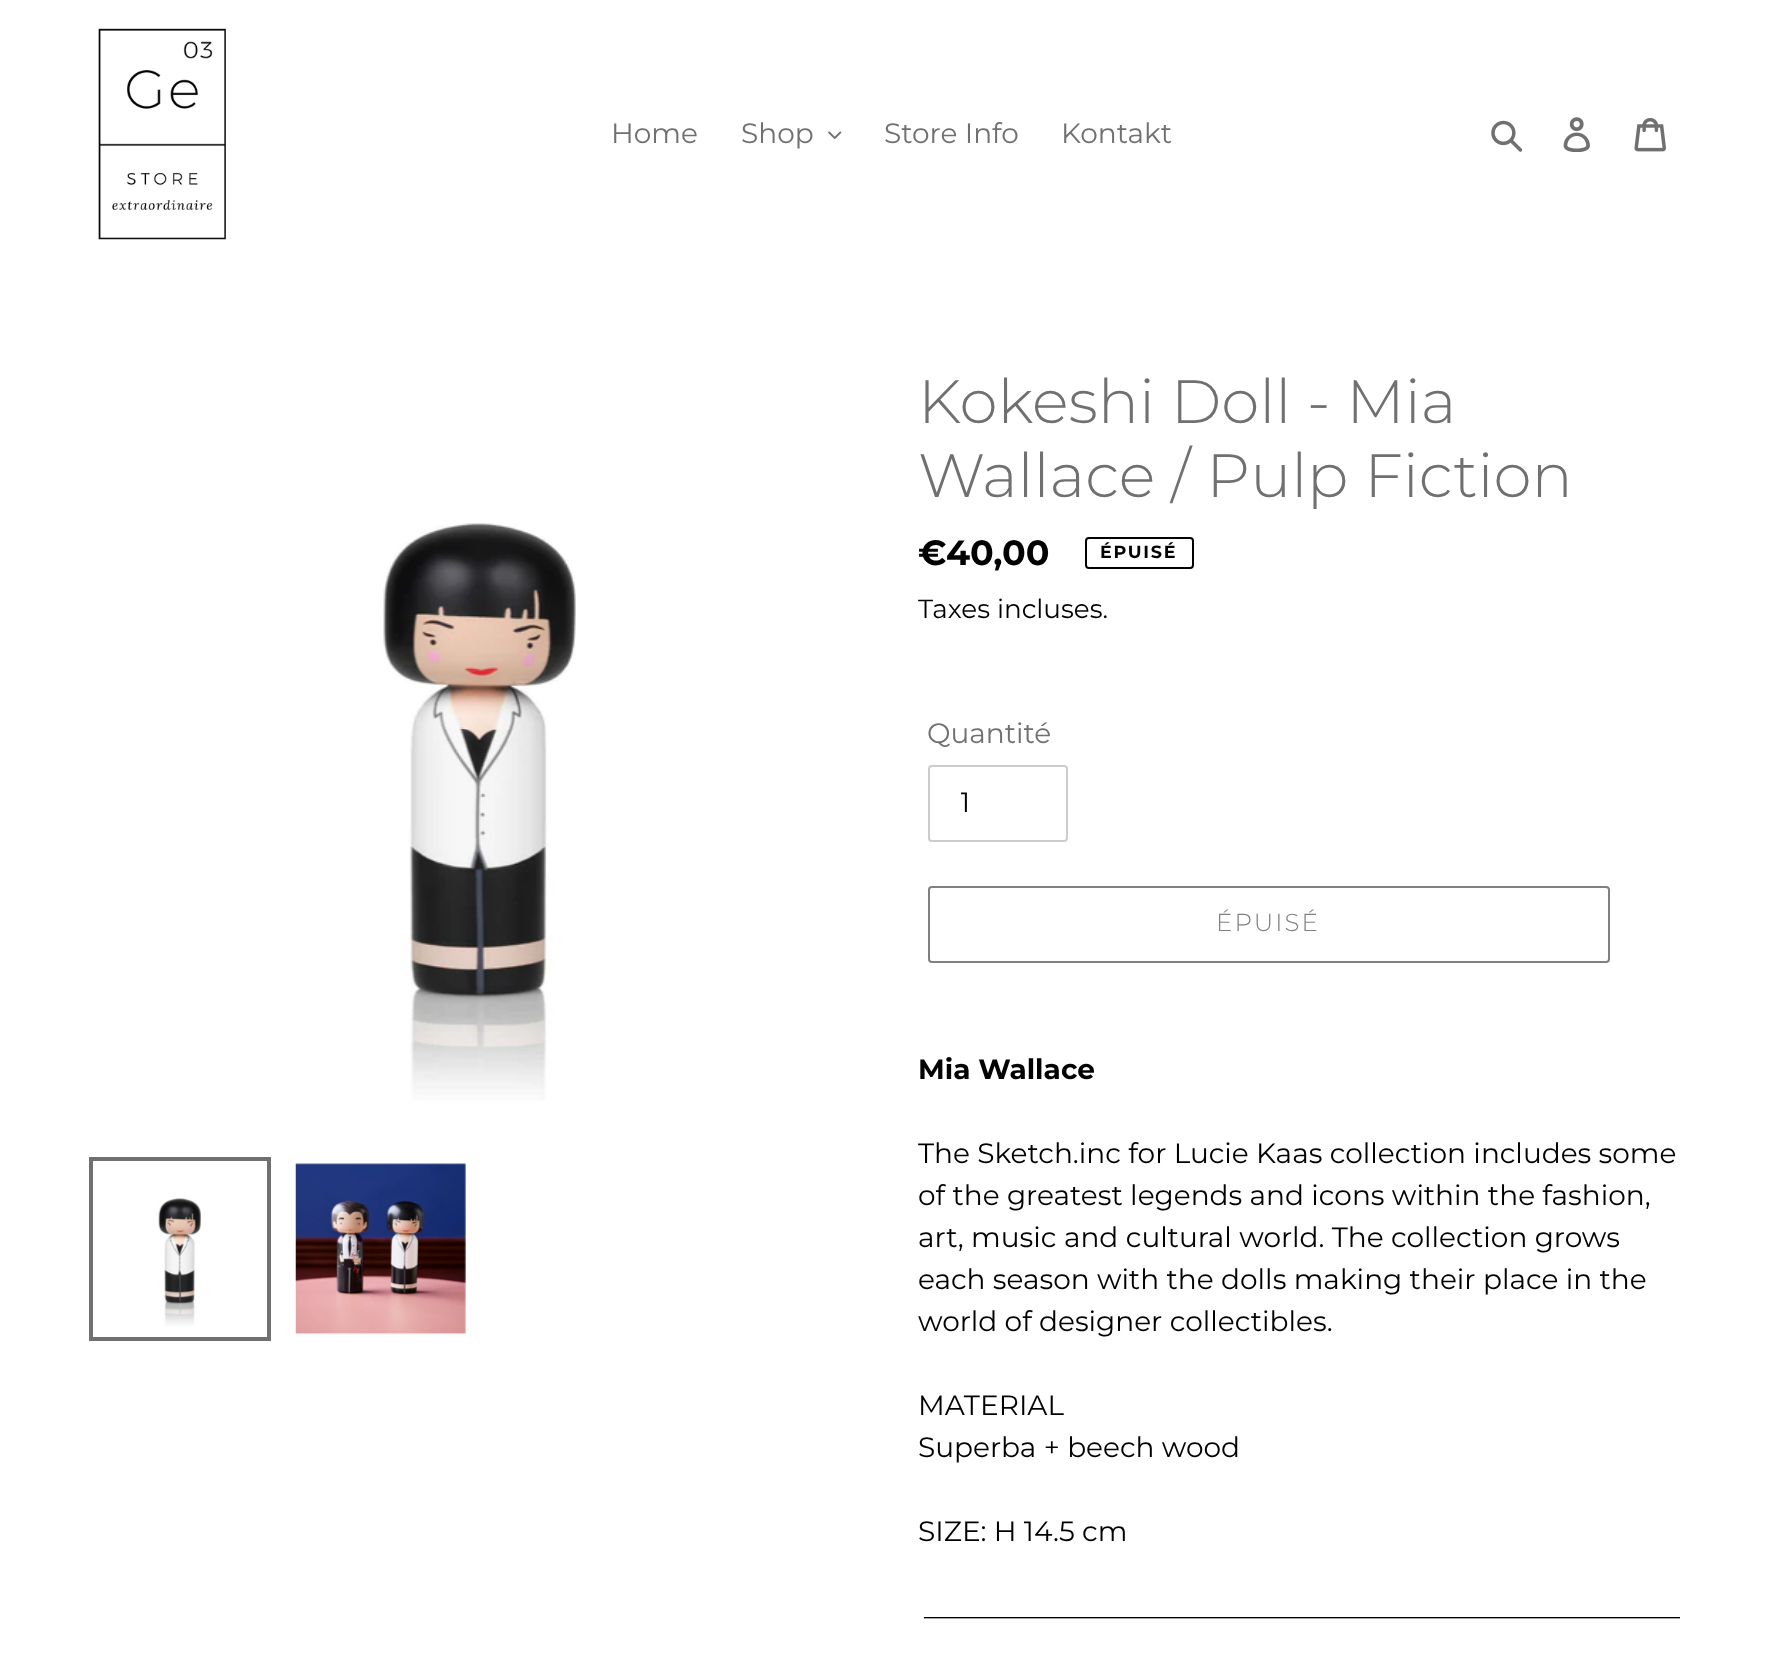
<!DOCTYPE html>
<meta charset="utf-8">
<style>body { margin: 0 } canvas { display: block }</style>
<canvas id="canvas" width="1783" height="1654"></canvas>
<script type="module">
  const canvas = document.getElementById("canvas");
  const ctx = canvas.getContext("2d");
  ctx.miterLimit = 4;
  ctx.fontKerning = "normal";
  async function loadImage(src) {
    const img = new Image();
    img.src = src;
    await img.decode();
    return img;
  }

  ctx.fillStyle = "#ffffff";
  ctx.fillRect(0, 0, 1783, 1654);
  ctx.drawImage(await loadImage("img1.png"), 98, 28, 128, 212);
  ctx.font = "28px Montserrat";
  ctx.fillStyle = "#707070";
  ctx.fillText("Home", 611, 143);
  ctx.fillText("Shop", 741, 143);
  ctx.drawImage(await loadImage("img2.png"), 828, 131, 14, 8);
  ctx.fillText("Store Info", 884, 143);
  ctx.fillText("Kontakt", 1061, 143);
  ctx.drawImage(await loadImage("img3.png"), 1491, 120, 32, 32);
  ctx.drawImage(await loadImage("img4.png"), 1563, 117, 27, 35);
  ctx.drawImage(await loadImage("img5.png"), 1634, 118, 32, 34);
  ctx.drawImage(await loadImage("img6.png"), 383, 523, 193, 578);
  ctx.strokeStyle = "#707070";
  ctx.lineWidth = 4;
  ctx.strokeRect(91, 1159, 178, 180);
  ctx.drawImage(await loadImage("img7.png"), 158, 1198, 43, 129);
  ctx.drawImage(await loadImage("img8.png"), 295, 1163, 171, 172);
  ctx.font = "300 61.25px Montserrat";
  ctx.fillText("Kokeshi Doll - Mia", 918, 423);
  ctx.fillText("Wallace / Pulp Fiction", 918, 497);
  ctx.font = "bold 35px Montserrat";
  ctx.fillStyle = "#000000";
  ctx.fillText("€40,00", 918, 565);
  ctx.beginPath();
  ctx.roundRect(1086, 538, 107, 30, 3);
  ctx.strokeStyle = "#000000";
  ctx.lineWidth = 2;
  ctx.stroke();
  ctx.letterSpacing = "1.75px";
  ctx.font = "bold 17.5px Montserrat";
  ctx.fillText("ÉPUISÉ", 1100, 558);
  ctx.letterSpacing = "0px";
  ctx.font = "26.25px Montserrat";
  ctx.fillText("Taxes incluses.", 918, 618);
  ctx.font = "28px Montserrat";
  ctx.fillStyle = "#707070";
  ctx.fillText("Quantité", 927, 743);
  ctx.beginPath();
  ctx.roundRect(929, 766, 138, 75, 3);
  ctx.strokeStyle = "#cccccc";
  ctx.stroke();
  ctx.save();
  ctx.beginPath();
  ctx.rect(961, 786, 47, 33);
  ctx.clip();
  ctx.fillStyle = "#000000";
  ctx.fillText("1", 960, 812);
  ctx.restore();
  ctx.beginPath();
  ctx.roundRect(929, 887, 680, 75, 3);
  ctx.strokeStyle = "#808080";
  ctx.stroke();
  ctx.letterSpacing = "2px";
  ctx.font = "300 24.5px Montserrat";
  ctx.fillStyle = "#808080";
  ctx.fillText("ÉPUISÉ", 1216, 931);
  ctx.letterSpacing = "0px";
  ctx.font = "bold 28px Montserrat";
  ctx.fillStyle = "#000000";
  ctx.fillText("Mia Wallace", 918, 1079);
  ctx.font = "28px Montserrat";
  ctx.fillText("The Sketch.inc for Lucie Kaas collection includes some", 918, 1163);
  ctx.fillText("of the greatest legends and icons within the fashion,", 918, 1205);
  ctx.fillText("art, music and cultural world. The collection grows", 918, 1247);
  ctx.fillText("each season with the dolls making their place in the", 918, 1289);
  ctx.fillText("world of designer collectibles.", 918, 1331);
  ctx.fillText("MATERIAL", 918, 1415);
  ctx.fillText("Superba + beech wood", 918, 1457);
  ctx.fillText("SIZE: H 14.5 cm", 918, 1541);
  ctx.fillText("______________________________________________________", 924, 1617);
</script>
